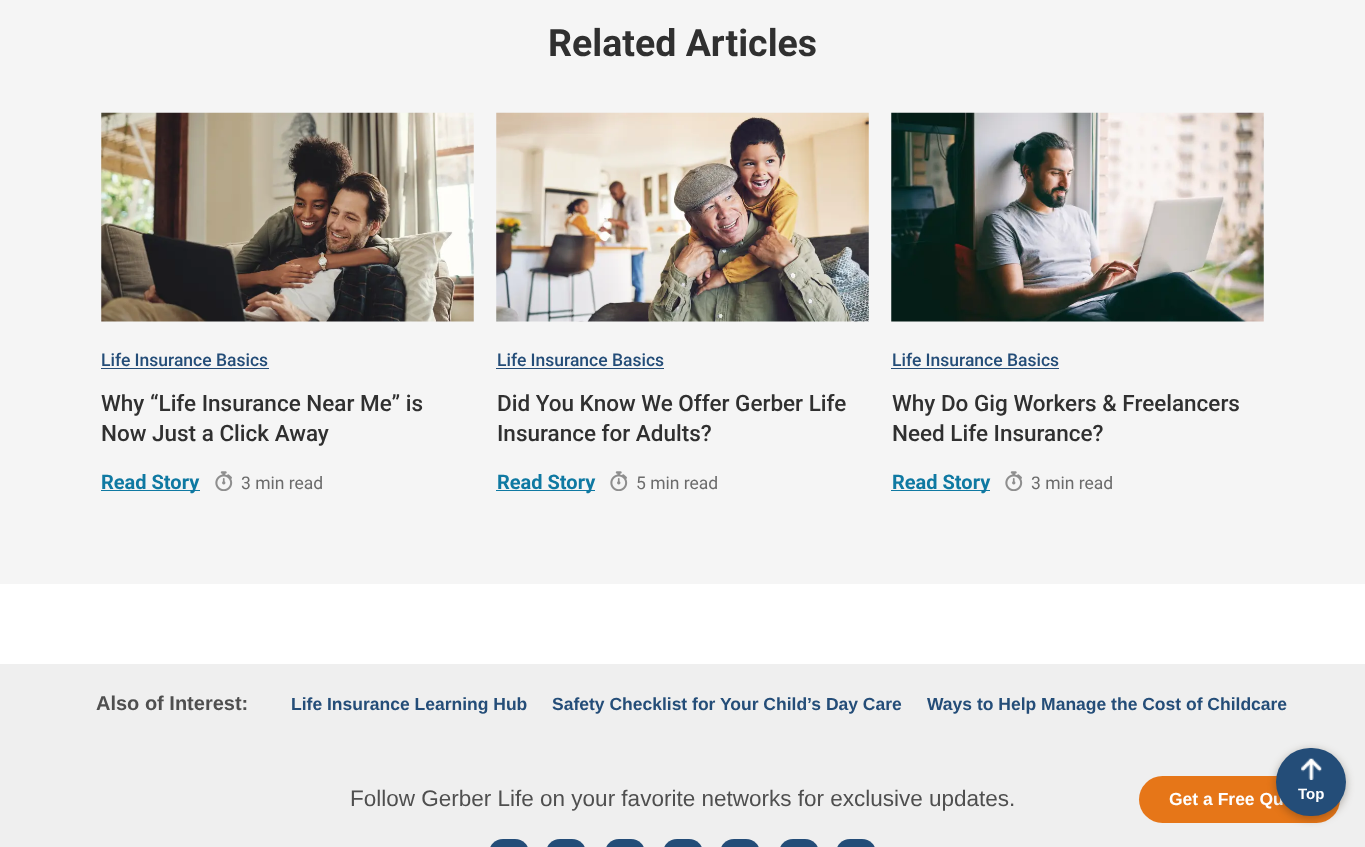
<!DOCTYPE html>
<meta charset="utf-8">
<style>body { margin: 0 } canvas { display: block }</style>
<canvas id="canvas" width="1365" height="847"></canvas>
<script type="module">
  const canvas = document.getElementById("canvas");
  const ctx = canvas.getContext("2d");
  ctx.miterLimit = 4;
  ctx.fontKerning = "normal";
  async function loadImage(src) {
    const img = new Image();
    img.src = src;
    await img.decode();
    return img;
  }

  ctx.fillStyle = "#ffffff";
  ctx.fillRect(0, 0, 1365, 847);
  ctx.fillStyle = "#f5f5f5";
  ctx.fillRect(0, 0, 1365, 584);
  ctx.font = "bold 37.5px Roboto";
  ctx.fillStyle = "#303030";
  ctx.fillText("Related Articles", 548, 56);
  ctx.drawImage(await loadImage("img1.png"), 101, 112, 373, 210);
  ctx.font = "500 17.5px Roboto";
  ctx.fillStyle = "#244d78";
  ctx.fillText("Life Insurance Basics", 101, 366);
  ctx.fillRect(101, 368, 168, 1);
  ctx.font = "500 22.5px Roboto";
  ctx.fillStyle = "#303030";
  ctx.fillText("Why “Life Insurance Near Me” is", 101, 411);
  ctx.fillText("Now Just a Click Away", 101, 441);
  ctx.fillStyle = "#0f79a2";
  ctx.fillRect(101, 490, 99, 1);
  ctx.font = "bold 20px Roboto";
  ctx.fillText("Read Story", 101, 489);
  ctx.drawImage(await loadImage("img2.png"), 215, 471, 18, 20);
  ctx.font = "17.5px Roboto";
  ctx.fillStyle = "#6b6b6b";
  ctx.fillText("3 min read", 241, 489);
  ctx.drawImage(await loadImage("img3.png"), 496, 112, 373, 210);
  ctx.font = "500 17.5px Roboto";
  ctx.fillStyle = "#244d78";
  ctx.fillText("Life Insurance Basics", 497, 366);
  ctx.fillRect(496, 368, 168, 1);
  ctx.font = "500 22.5px Roboto";
  ctx.fillStyle = "#303030";
  ctx.fillText("Did You Know We Offer Gerber Life", 497, 411);
  ctx.fillText("Insurance for Adults?", 497, 441);
  ctx.fillStyle = "#0f79a2";
  ctx.fillRect(496, 490, 99, 1);
  ctx.font = "bold 20px Roboto";
  ctx.fillText("Read Story", 497, 489);
  ctx.drawImage(await loadImage("img2.png"), 610, 471, 18, 20);
  ctx.font = "17.5px Roboto";
  ctx.fillStyle = "#6b6b6b";
  ctx.fillText("5 min read", 636, 489);
  ctx.drawImage(await loadImage("img4.png"), 891, 112, 373, 210);
  ctx.font = "500 17.5px Roboto";
  ctx.fillStyle = "#244d78";
  ctx.fillText("Life Insurance Basics", 892, 366);
  ctx.fillRect(891, 368, 168, 1);
  ctx.font = "500 22.5px Roboto";
  ctx.fillStyle = "#303030";
  ctx.fillText("Why Do Gig Workers & Freelancers", 892, 411);
  ctx.fillText("Need Life Insurance?", 892, 441);
  ctx.fillStyle = "#0f79a2";
  ctx.fillRect(891, 490, 99, 1);
  ctx.font = "bold 20px Roboto";
  ctx.fillText("Read Story", 892, 489);
  ctx.drawImage(await loadImage("img2.png"), 1005, 471, 18, 20);
  ctx.font = "17.5px Roboto";
  ctx.fillStyle = "#6b6b6b";
  ctx.fillText("3 min read", 1031, 489);
  ctx.fillStyle = "#efefef";
  ctx.fillRect(0, 664, 1365, 183);
  ctx.fillStyle = "#e67618";
  ctx.beginPath();
  ctx.roundRect(1139, 776, 201, 47, 23.5);
  ctx.fill();
  ctx.font = "bold 17.5px Liberation Sans";
  ctx.fillStyle = "#ffffff";
  ctx.fillText("Get a Free Qu", 1169, 805);
  ctx.fillStyle = "rgba(52, 38, 21, 0.35)";
  ctx.filter = "blur(4.5px)";
  ctx.beginPath();
  ctx.roundRect(1276, 750, 70, 69, 34.5);
  ctx.fill();
  ctx.filter = "none";
  ctx.fillStyle = "#244d78";
  ctx.beginPath();
  ctx.roundRect(1276, 748, 70, 68, 34);
  ctx.fill();
  ctx.drawImage(await loadImage("img5.png"), 1301, 758, 21, 22);
  ctx.font = "bold 15px Liberation Sans";
  ctx.fillStyle = "#ffffff";
  ctx.fillText("Top", 1298, 799);
  ctx.font = "bold 20px Liberation Sans";
  ctx.fillStyle = "#4f4f4f";
  ctx.fillText("Also of Interest:", 96, 710);
  ctx.font = "bold 17.5px Liberation Sans";
  ctx.fillStyle = "#244d78";
  ctx.fillText("Life Insurance Learning Hub", 291, 710);
  ctx.fillText("Safety Checklist for Your Child’s Day Care", 552, 710);
  ctx.fillText("Ways to Help Manage the Cost of Childcare", 927, 710);
  ctx.font = "22.5px Liberation Sans";
  ctx.fillStyle = "#4f4f4f";
  ctx.fillText("Follow Gerber Life on your favorite networks for exclusive updates.", 350, 806);
  ctx.fillStyle = "#244d78";
  ctx.beginPath();
  ctx.roundRect(489, 839, 40, 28, 20);
  ctx.fill();
  ctx.beginPath();
  ctx.roundRect(546, 839, 40, 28, 20);
  ctx.fill();
  ctx.beginPath();
  ctx.roundRect(605, 839, 40, 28, 20);
  ctx.fill();
  ctx.beginPath();
  ctx.roundRect(663, 839, 40, 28, 20);
  ctx.fill();
  ctx.beginPath();
  ctx.roundRect(720, 839, 40, 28, 20);
  ctx.fill();
  ctx.beginPath();
  ctx.roundRect(779, 839, 40, 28, 20);
  ctx.fill();
  ctx.beginPath();
  ctx.roundRect(836, 839, 40, 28, 20);
  ctx.fill();
</script>
